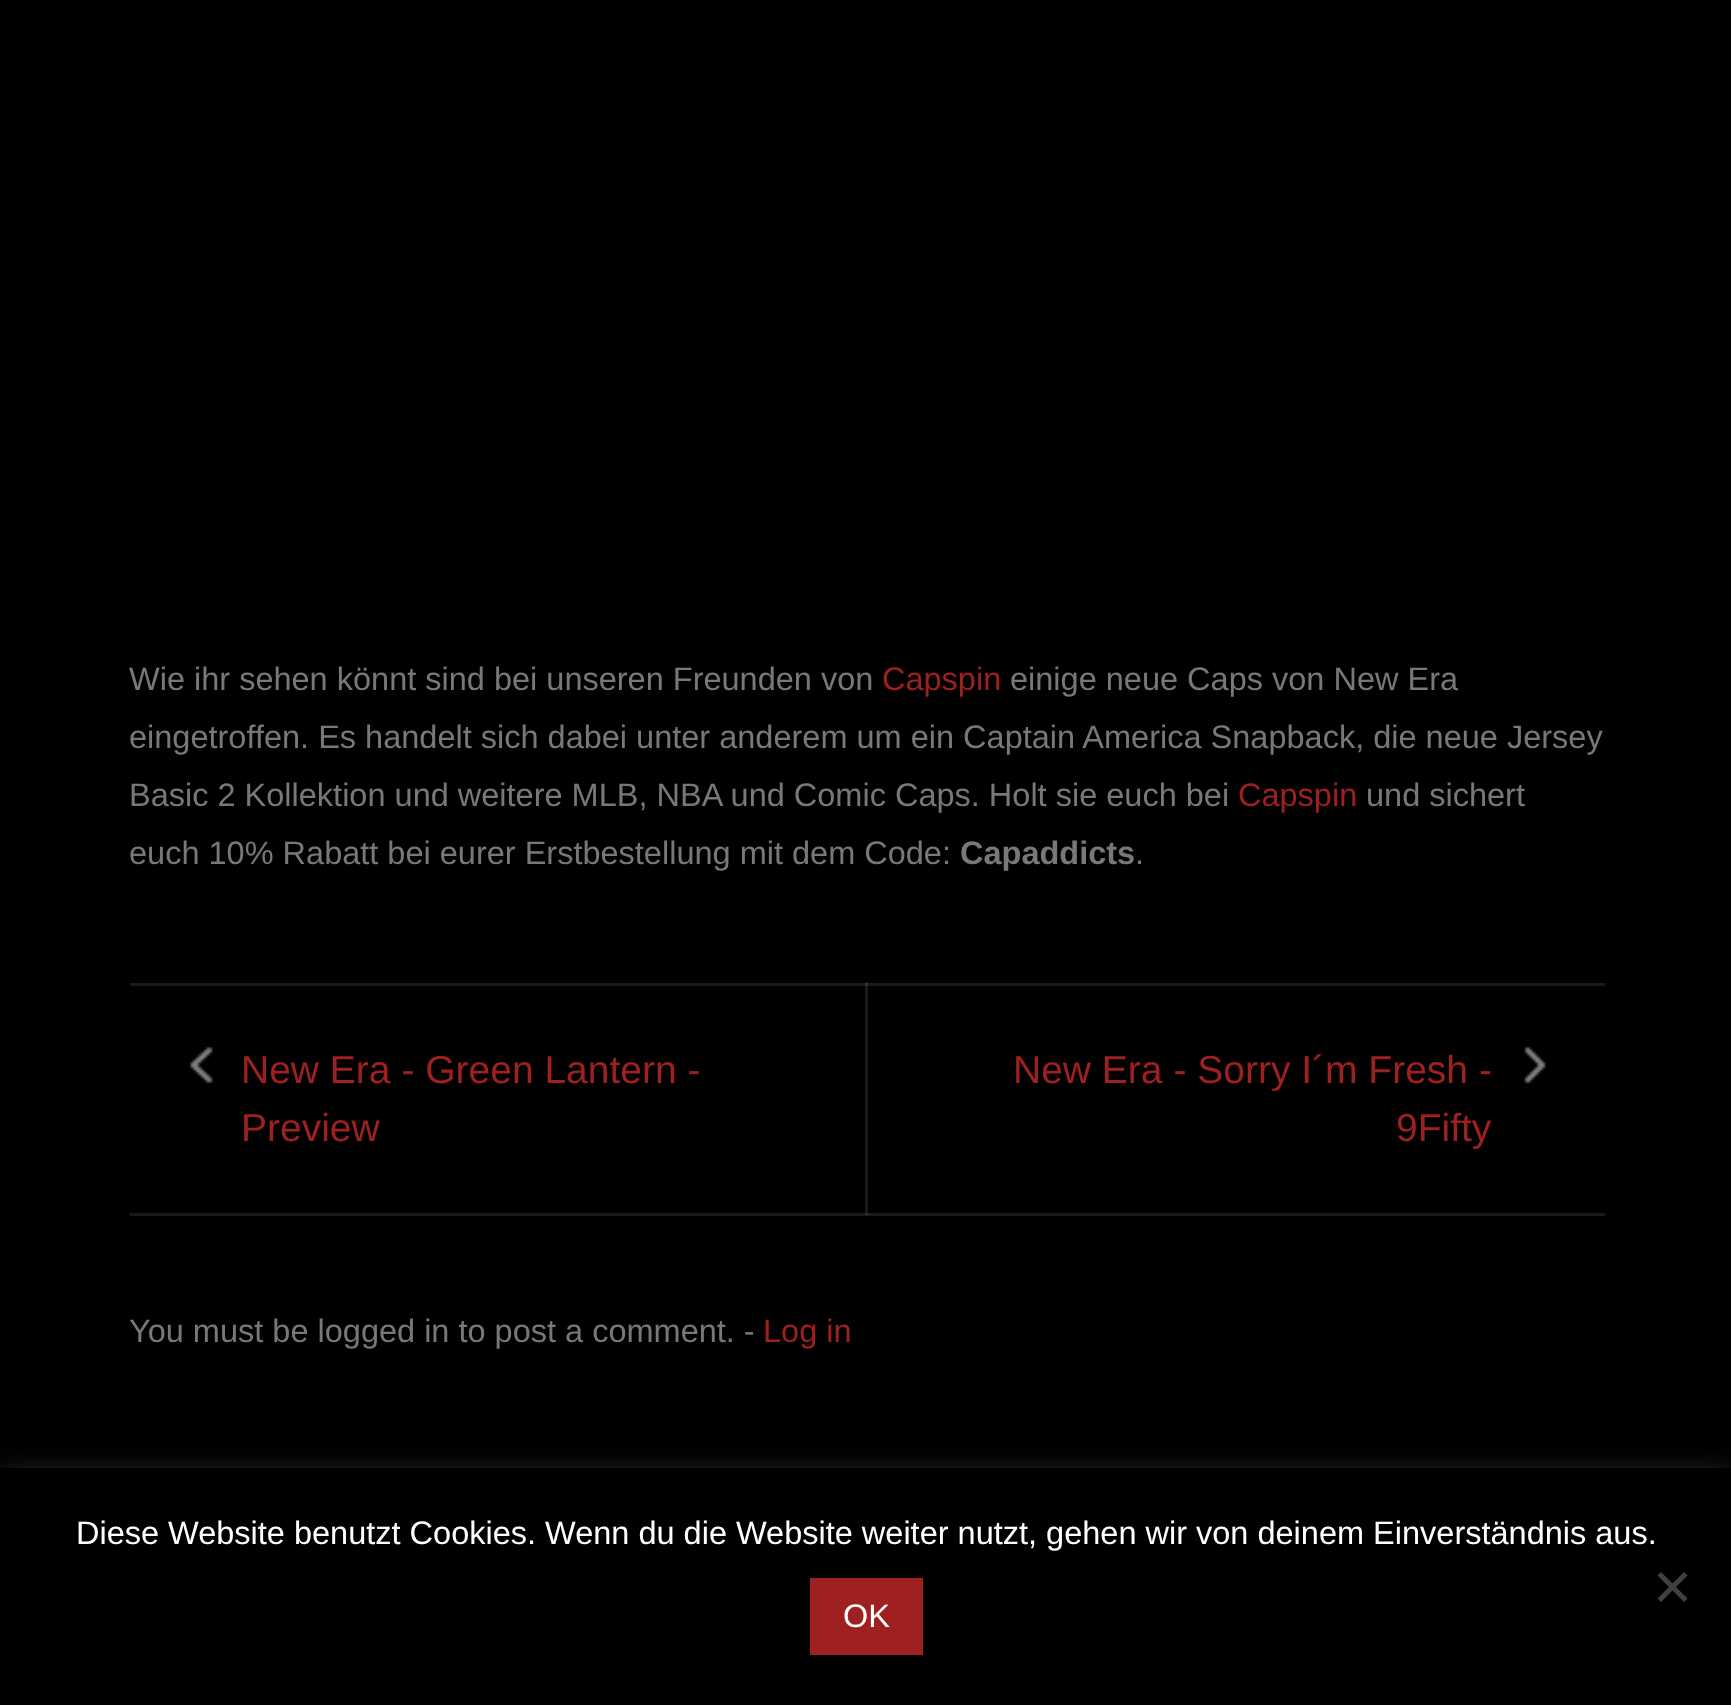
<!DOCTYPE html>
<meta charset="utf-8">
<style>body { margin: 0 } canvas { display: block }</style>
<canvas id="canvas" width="1731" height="1705"></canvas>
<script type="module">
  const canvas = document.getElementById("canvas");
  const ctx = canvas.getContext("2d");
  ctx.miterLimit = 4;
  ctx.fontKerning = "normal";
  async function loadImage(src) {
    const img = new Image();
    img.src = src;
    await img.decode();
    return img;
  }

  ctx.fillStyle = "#000000";
  ctx.fillRect(0, 0, 1731, 1705);
  ctx.fillStyle = "#1a1a1a";
  ctx.fillRect(130, 983, 1475, 3);
  ctx.fillRect(130, 1213, 1475, 3);
  ctx.font = "32.5px Liberation Sans";
  ctx.fillStyle = "#787878";
  ctx.fillText("Wie ihr sehen könnt sind bei unseren Freunden von", 129, 690);
  ctx.fillStyle = "#9e2020";
  ctx.fillText("Capspin", 882, 690);
  ctx.fillStyle = "#787878";
  ctx.fillText("einige neue Caps von New Era", 1010, 690);
  ctx.fillText("eingetroffen. Es handelt sich dabei unter anderem um ein Captain America Snapback, die neue Jersey", 129, 748);
  ctx.fillText("Basic 2 Kollektion und weitere MLB, NBA und Comic Caps. Holt sie euch bei", 129, 806);
  ctx.fillStyle = "#9e2020";
  ctx.fillText("Capspin", 1238, 806);
  ctx.fillStyle = "#787878";
  ctx.fillText("und sichert", 1366, 806);
  ctx.fillText("euch 10% Rabatt bei eurer Erstbestellung mit dem Code:", 129, 864);
  ctx.font = "bold 32.5px Liberation Sans";
  ctx.fillText("Capaddicts", 960, 864);
  ctx.font = "32.5px Liberation Sans";
  ctx.fillText(".", 1135, 864);
  ctx.fillStyle = "#1a1a1a";
  ctx.fillRect(865, 982, 3, 233);
  ctx.fillStyle = "#313131";
  ctx.fillRect(865, 983, 3, 3);
  ctx.fillRect(865, 1213, 3, 2);
  ctx.drawImage(await loadImage("img1.png"), 189, 1046, 24, 38);
  ctx.font = "39px Liberation Sans";
  ctx.fillStyle = "#9e2020";
  ctx.fillText("New Era - Green Lantern -", 241, 1083);
  ctx.fillText("Preview", 241, 1141);
  ctx.fillText("New Era - Sorry I´m Fresh -", 1013, 1083);
  ctx.drawImage(await loadImage("img2.png"), 1524, 1046, 22, 38);
  ctx.fillText("9Fifty", 1396, 1141);
  ctx.font = "32.5px Liberation Sans";
  ctx.fillStyle = "#787878";
  ctx.fillText("You must be logged in to post a comment. -", 129, 1342);
  ctx.fillStyle = "#9e2020";
  ctx.fillText("Log in", 763, 1342);
  ctx.fillStyle = "rgba(172, 171, 171, 0.3)";
  ctx.filter = "blur(12.5px)";
  ctx.beginPath();
  ctx.rect(0, 1473, 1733, 230);
  ctx.fill();
  ctx.filter = "none";
  ctx.fillStyle = "#000000";
  ctx.fillRect(0, 1468, 1731, 237);
  ctx.fillStyle = "#ffffff";
  ctx.fillText("Diese Website benutzt Cookies. Wenn du die Website weiter nutzt, gehen wir von deinem Einverständnis aus.", 76, 1544);
  ctx.fillStyle = "#404040";
  ctx.beginPath();
  ctx.moveTo(1684, 1572);
  ctx.lineTo(1687.5, 1575.5);
  ctx.lineTo(1661, 1602);
  ctx.lineTo(1657.5, 1598.5);
  ctx.closePath();
  ctx.fill();
  ctx.beginPath();
  ctx.moveTo(1657.5, 1575.5);
  ctx.lineTo(1661, 1572);
  ctx.lineTo(1687.5, 1598.5);
  ctx.lineTo(1684, 1602);
  ctx.closePath();
  ctx.fill();
  ctx.fillStyle = "#9e2020";
  ctx.fillRect(810, 1578, 113, 77);
  ctx.fillStyle = "#ffffff";
  ctx.fillText("OK", 843, 1627);
</script>
